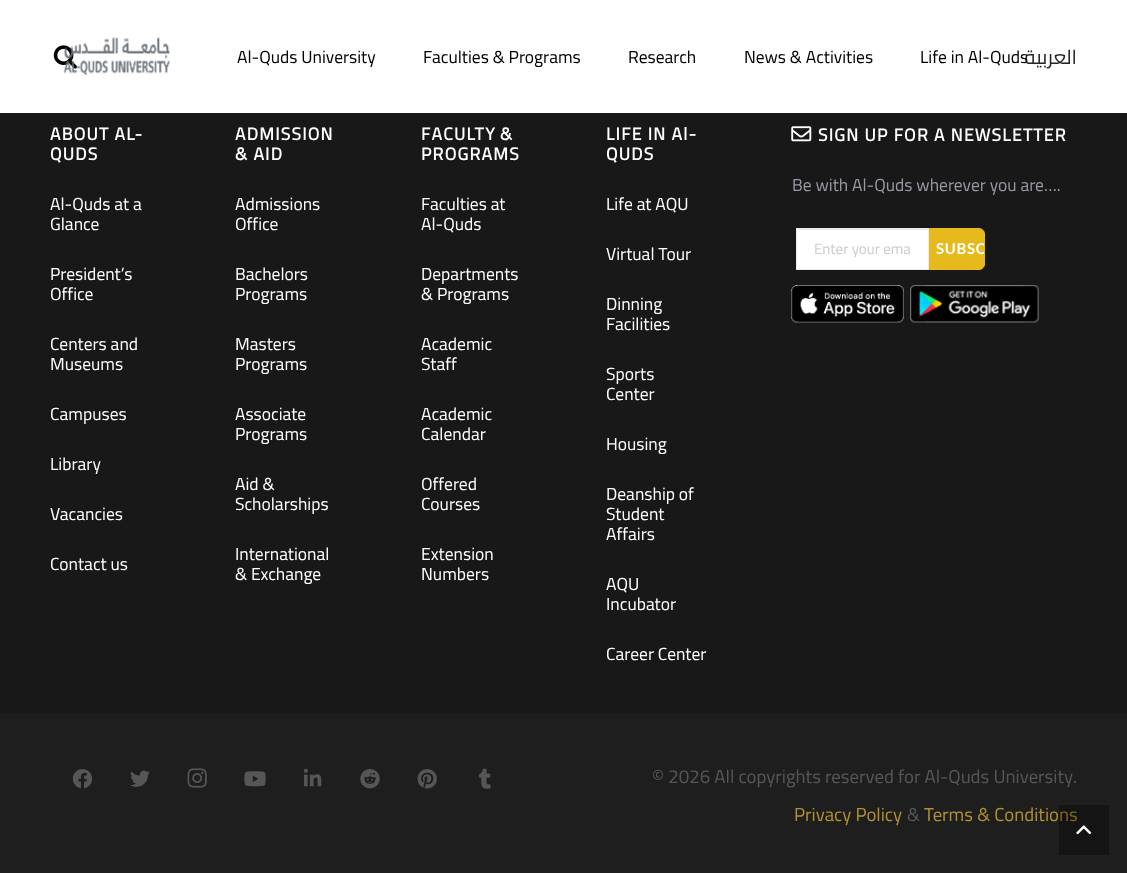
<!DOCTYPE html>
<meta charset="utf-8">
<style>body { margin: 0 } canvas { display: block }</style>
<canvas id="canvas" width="1127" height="873"></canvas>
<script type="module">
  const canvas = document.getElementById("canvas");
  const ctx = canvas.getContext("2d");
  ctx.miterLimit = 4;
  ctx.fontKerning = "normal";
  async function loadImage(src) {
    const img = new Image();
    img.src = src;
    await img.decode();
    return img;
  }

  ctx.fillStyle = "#181818";
  ctx.fillRect(0, 0, 1127, 873);
  ctx.fillStyle = "#ffffff";
  ctx.fillRect(0, 0, 1127, 113);
  ctx.drawImage(await loadImage("img2.png"), 53, 45, 24, 24);
  ctx.drawImage(await loadImage("img1.png"), 63, 37, 107, 38);
  ctx.font = "17.5px Cairo";
  ctx.fillStyle = "#000000";
  ctx.fillText("Al-Quds University", 237, 63);
  ctx.fillText("Faculties & Programs", 423, 63);
  ctx.fillText("Research", 628, 63);
  ctx.fillText("News & Activities", 744, 63);
  ctx.direction = "rtl";
  ctx.font = "20px Cairo";
  ctx.fillStyle = "#252525";
  ctx.fillText("العربية", 1077, 64);
  ctx.direction = "ltr";
  ctx.font = "17.5px Cairo";
  ctx.fillStyle = "#000000";
  ctx.fillText("Life in Al-Quds", 920, 63);
  ctx.letterSpacing = "1.25px";
  ctx.font = "bold 17.5px Cairo";
  ctx.fillStyle = "#ffffff";
  ctx.fillText("ABOUT AL-", 50, 140);
  ctx.fillText("QUDS", 50, 160);
  ctx.letterSpacing = "0px";
  ctx.font = "17.5px Cairo";
  ctx.fillText("Al-Quds at a", 50, 210);
  ctx.fillText("Glance", 50, 230);
  ctx.fillText("President’s", 50, 280);
  ctx.fillText("Office", 50, 300);
  ctx.fillText("Centers and", 50, 350);
  ctx.fillText("Museums", 50, 370);
  ctx.fillText("Campuses", 50, 420);
  ctx.fillText("Library", 50, 470);
  ctx.fillText("Vacancies", 50, 520);
  ctx.fillText("Contact us", 50, 570);
  ctx.letterSpacing = "1.25px";
  ctx.font = "bold 17.5px Cairo";
  ctx.fillText("ADMISSION", 235, 140);
  ctx.fillText("& AID", 235, 160);
  ctx.letterSpacing = "0px";
  ctx.font = "17.5px Cairo";
  ctx.fillText("Admissions", 235, 210);
  ctx.fillText("Office", 235, 230);
  ctx.fillText("Bachelors", 235, 280);
  ctx.fillText("Programs", 235, 300);
  ctx.fillText("Masters", 235, 350);
  ctx.fillText("Programs", 235, 370);
  ctx.fillText("Associate", 235, 420);
  ctx.fillText("Programs", 235, 440);
  ctx.fillText("Aid &", 235, 490);
  ctx.fillText("Scholarships", 235, 510);
  ctx.fillText("International", 235, 560);
  ctx.fillText("& Exchange", 235, 580);
  ctx.letterSpacing = "1.25px";
  ctx.wordSpacing = "-1px";
  ctx.font = "bold 17.5px Cairo";
  ctx.fillText("FACULTY &", 421, 140);
  ctx.wordSpacing = "0px";
  ctx.fillText("PROGRAMS", 421, 160);
  ctx.letterSpacing = "0px";
  ctx.font = "17.5px Cairo";
  ctx.fillText("Faculties at", 421, 210);
  ctx.fillText("Al-Quds", 421, 230);
  ctx.fillText("Departments", 421, 280);
  ctx.fillText("& Programs", 421, 300);
  ctx.fillText("Academic", 421, 350);
  ctx.fillText("Staff", 421, 370);
  ctx.fillText("Academic", 421, 420);
  ctx.fillText("Calendar", 421, 440);
  ctx.fillText("Offered", 421, 490);
  ctx.fillText("Courses", 421, 510);
  ctx.fillText("Extension", 421, 560);
  ctx.fillText("Numbers", 421, 580);
  ctx.letterSpacing = "1.25px";
  ctx.font = "bold 17.5px Cairo";
  ctx.fillText("LIFE IN Al-", 606, 140);
  ctx.fillText("QUDS", 606, 160);
  ctx.letterSpacing = "0px";
  ctx.font = "17.5px Cairo";
  ctx.fillText("Life at AQU", 606, 210);
  ctx.fillText("Virtual Tour", 606, 260);
  ctx.fillText("Dinning", 606, 310);
  ctx.fillText("Facilities", 606, 330);
  ctx.fillText("Sports", 606, 380);
  ctx.fillText("Center", 606, 400);
  ctx.fillText("Housing", 606, 450);
  ctx.fillText("Deanship of", 606, 500);
  ctx.fillText("Student", 606, 520);
  ctx.fillText("Affairs", 606, 540);
  ctx.fillText("AQU", 606, 590);
  ctx.fillText("Incubator", 606, 610);
  ctx.fillText("Career Center", 606, 660);
  ctx.drawImage(await loadImage("img3.png"), 791, 126, 21, 16);
  ctx.letterSpacing = "1.25px";
  ctx.font = "bold 17.5px Cairo";
  ctx.fillText("SIGN UP FOR A NEWSLETTER", 818, 141);
  ctx.letterSpacing = "0px";
  ctx.font = "17.5px Cairo";
  ctx.fillStyle = "#9698a3";
  ctx.fillText("Be with Al-Quds wherever you are….", 792, 191);
  ctx.fillStyle = "#ffffff";
  ctx.fillRect(797, 229, 131, 40);
  ctx.fillStyle = "#ebebeb";
  ctx.fillRect(798, 229, 130, 1);
  ctx.strokeStyle = "#ebebeb";
  ctx.strokeRect(796.5, 228.5, 132, 41);
  ctx.font = "15px Cairo";
  ctx.fillStyle = "#cbccd1";
  ctx.fillText("Enter your ema", 814, 254);
  ctx.fillStyle = "#e6b91c";
  ctx.beginPath();
  ctx.roundRect(929.5, 228.5, 55, 41, [0, 5.5, 5.5, 0]);
  ctx.fill();
  ctx.strokeStyle = "#e6b91c";
  ctx.stroke();
  ctx.save();
  ctx.beginPath();
  ctx.roundRect(930, 229, 54, 40, [0, 5, 5, 0]);
  ctx.clip();
  ctx.letterSpacing = "0.75px";
  ctx.font = "bold 15px Lato";
  ctx.fillStyle = "#ffffff";
  ctx.fillText("SUBSC", 936, 254);
  ctx.restore();
  ctx.drawImage(await loadImage("img4.png"), 791, 285, 113, 38);
  ctx.drawImage(await loadImage("img5.png"), 910, 285, 129, 38);
  ctx.fillStyle = "#1e1e1e";
  ctx.fillRect(0, 714, 1127, 159);
  ctx.drawImage(await loadImage("img6.png"), 72, 769, 21, 20);
  ctx.drawImage(await loadImage("img7.png"), 130, 770, 20, 17);
  ctx.drawImage(await loadImage("img8.png"), 187, 768, 20, 20);
  ctx.drawImage(await loadImage("img9.png"), 244, 771, 22, 16);
  ctx.drawImage(await loadImage("img10.png"), 303, 768, 19, 19);
  ctx.drawImage(await loadImage("img11.png"), 360, 769, 20, 20);
  ctx.drawImage(await loadImage("img12.png"), 417, 769, 20, 20);
  ctx.drawImage(await loadImage("img13.png"), 479, 768, 12, 21);
  ctx.font = "18.75px Cairo";
  ctx.fillStyle = "#565656";
  ctx.fillText("© 2026 All copyrights reserved for Al-Quds University.", 652, 783);
  ctx.fillStyle = "#b19031";
  ctx.fillText("Privacy Policy", 794, 821);
  ctx.fillStyle = "#565656";
  ctx.fillText("&", 907, 821);
  ctx.fillStyle = "#b19031";
  ctx.fillText("Terms & Conditions", 924, 821);
  ctx.fillStyle = "rgba(0, 0, 0, 0.3)";
  ctx.fillRect(1059, 805, 50, 50);
  ctx.drawImage(await loadImage("img14.png"), 1076, 825, 16, 10);
</script>
